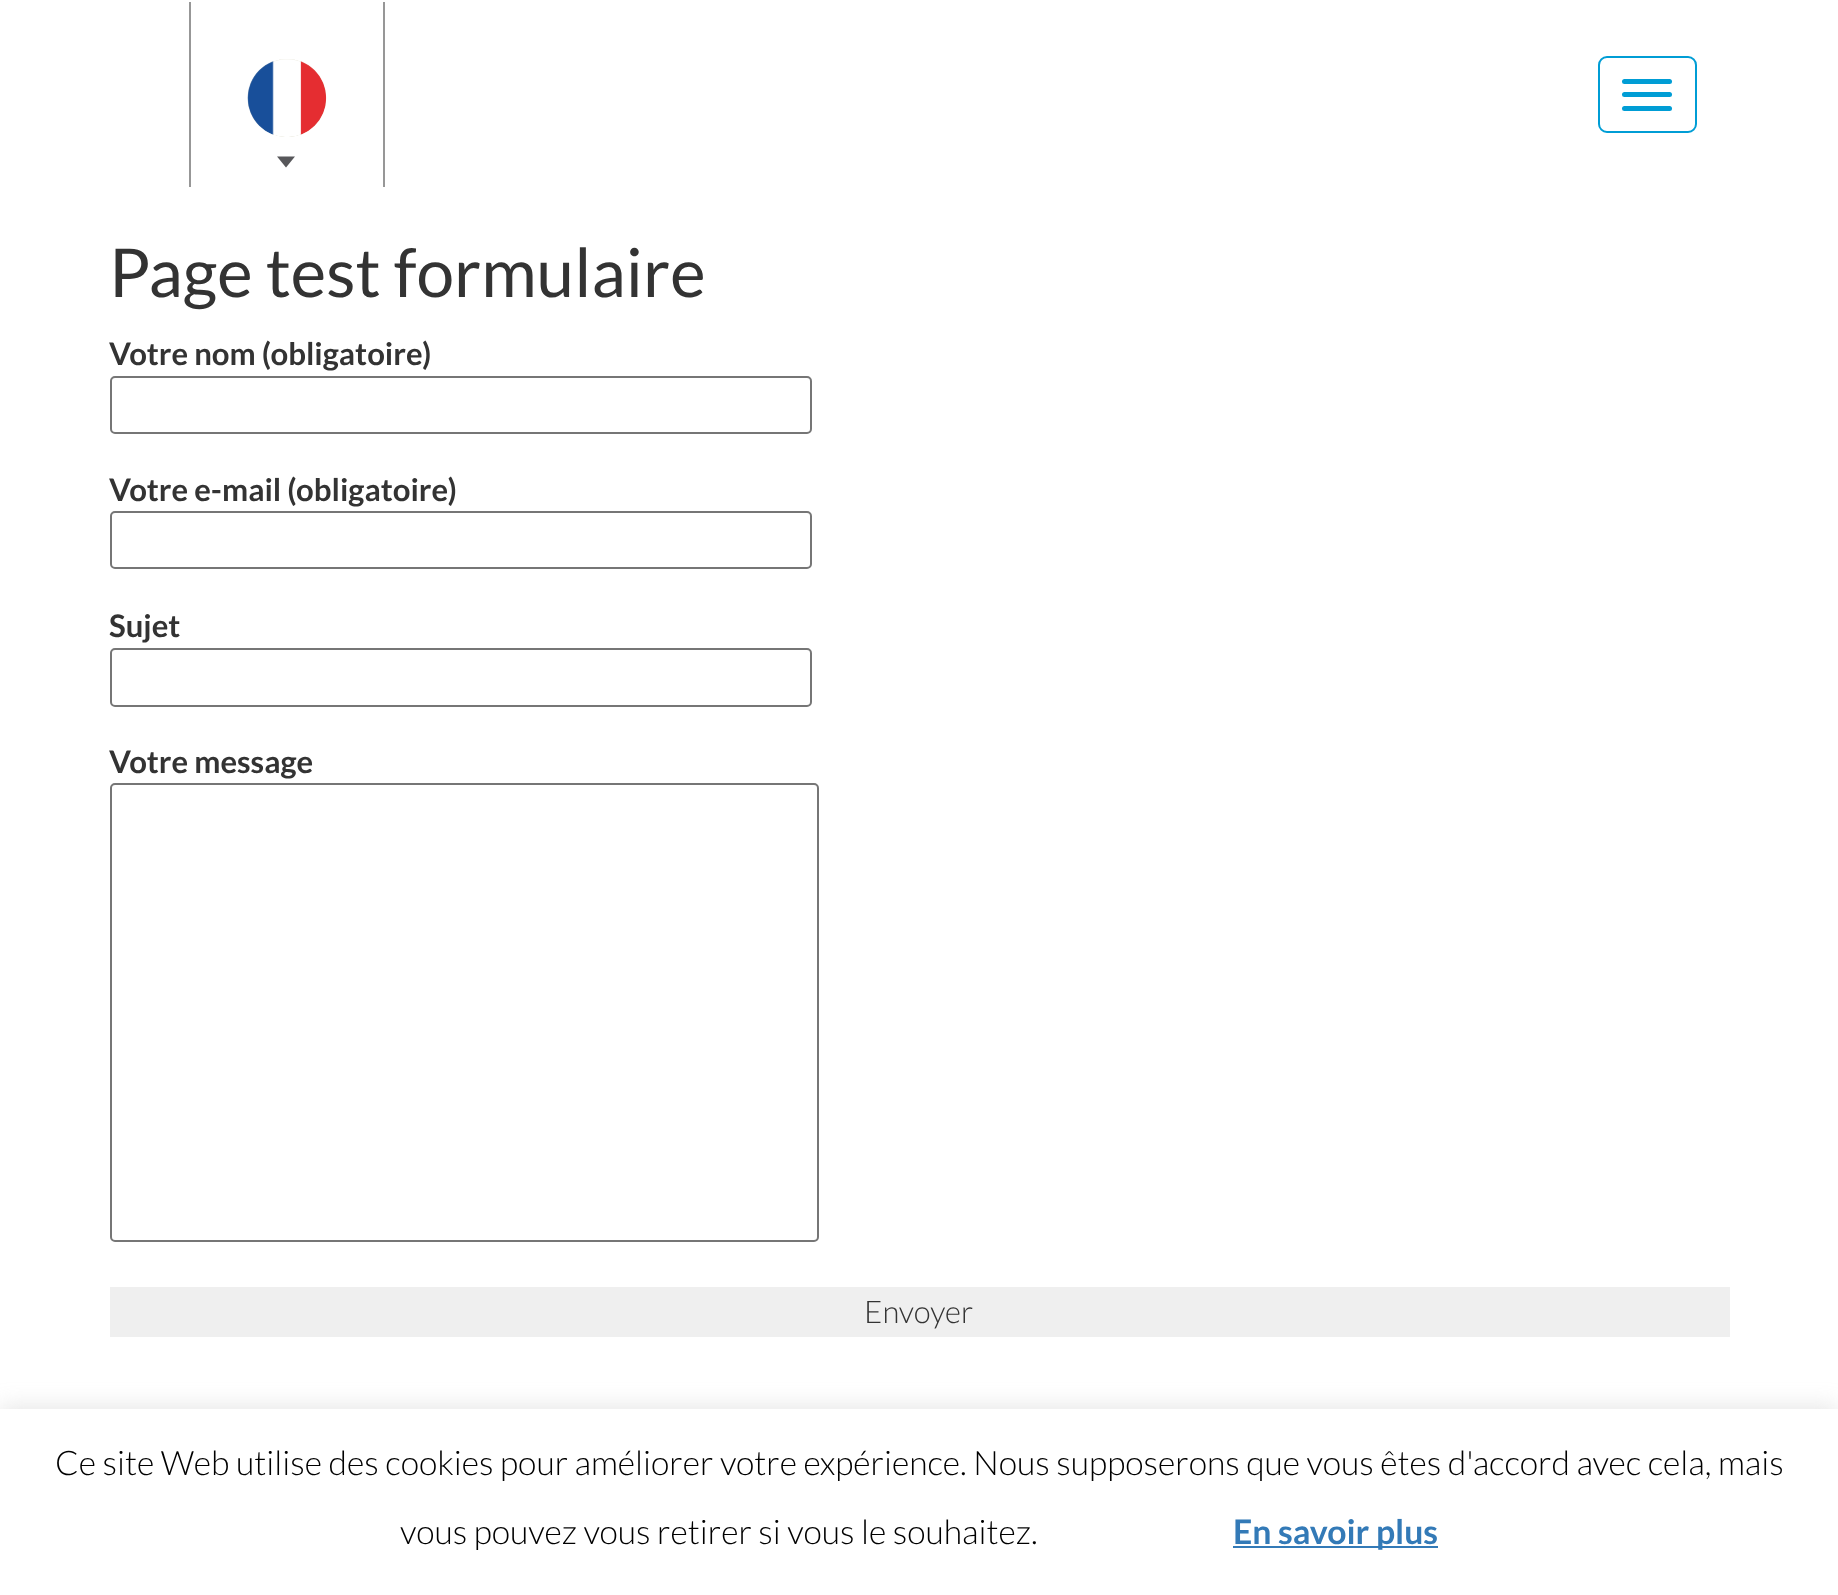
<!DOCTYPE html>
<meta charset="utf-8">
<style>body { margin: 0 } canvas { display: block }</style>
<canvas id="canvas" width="1838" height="1595"></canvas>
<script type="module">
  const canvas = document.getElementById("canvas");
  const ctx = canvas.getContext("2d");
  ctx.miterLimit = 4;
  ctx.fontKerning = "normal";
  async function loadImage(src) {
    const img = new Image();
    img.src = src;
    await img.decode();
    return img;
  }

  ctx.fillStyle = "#ffffff";
  ctx.fillRect(0, 0, 1838, 1595);
  ctx.fillStyle = "#979797";
  ctx.fillRect(383, 2, 2, 185);
  ctx.fillRect(189, 2, 2, 185);
  ctx.fillStyle = "#c0bd9c";
  ctx.beginPath();
  ctx.arc(287, 98, 39, 0, Math.PI * 2);
  ctx.fill();
  ctx.drawImage(await loadImage("img1.png"), 247, 59, 80, 78);
  ctx.fillStyle = "#57575a";
  ctx.beginPath();
  ctx.moveTo(277, 156.5);
  ctx.lineTo(295, 156.5);
  ctx.lineTo(286, 167.5);
  ctx.closePath();
  ctx.fill();
  ctx.beginPath();
  ctx.roundRect(1599, 57, 97, 75, 8);
  ctx.strokeStyle = "#009dd5";
  ctx.lineWidth = 2;
  ctx.stroke();
  ctx.fillStyle = "#009dd5";
  ctx.beginPath();
  ctx.roundRect(1622, 79, 50, 5, 2.5);
  ctx.fill();
  ctx.beginPath();
  ctx.roundRect(1622, 92, 50, 5, 2.5);
  ctx.fill();
  ctx.beginPath();
  ctx.roundRect(1622, 106, 50, 5, 2.5);
  ctx.fill();
  ctx.font = "67.5px Lato";
  ctx.fillStyle = "#333333";
  ctx.fillText("Page test formulaire", 109, 297);
  ctx.font = "bold 31.1px Lato";
  ctx.fillText("Votre nom (obligatoire)", 109, 365);
  ctx.beginPath();
  ctx.roundRect(111, 377, 700, 56, 4);
  ctx.strokeStyle = "#767676";
  ctx.stroke();
  ctx.fillText("Votre e-mail (obligatoire)", 109, 501);
  ctx.beginPath();
  ctx.roundRect(111, 512, 700, 56, 4);
  ctx.stroke();
  ctx.fillText("Sujet", 109, 637);
  ctx.beginPath();
  ctx.roundRect(111, 649, 700, 57, 4);
  ctx.stroke();
  ctx.fillText("Votre message", 109, 773);
  ctx.beginPath();
  ctx.roundRect(111, 784, 707, 457, 4);
  ctx.stroke();
  ctx.fillStyle = "#efefef";
  ctx.fillRect(110, 1287, 1620, 50);
  ctx.font = "300 31.1px Lato";
  ctx.fillStyle = "#333333";
  ctx.fillText("Envoyer", 864, 1323);
  ctx.fillStyle = "rgba(172, 171, 171, 0.3)";
  ctx.filter = "blur(11px)";
  ctx.beginPath();
  ctx.rect(0, 1406, 1838, 187);
  ctx.fill();
  ctx.filter = "none";
  ctx.fillStyle = "#ffffff";
  ctx.fillRect(0, 1409, 1838, 186);
  ctx.font = "300 33.75px Lato";
  ctx.fillStyle = "#000000";
  ctx.fillText("Ce site Web utilise des cookies pour améliorer votre expérience. Nous supposerons que vous êtes d'accord avec cela, mais", 55, 1475);
  ctx.fillText("vous pouvez vous retirer si vous le souhaitez.", 400, 1544);
  ctx.fillStyle = "#337ab7";
  ctx.fillRect(1233, 1546, 205, 2);
  ctx.font = "bold 33.75px Lato";
  ctx.fillText("En savoir plus", 1233, 1544);
</script>
